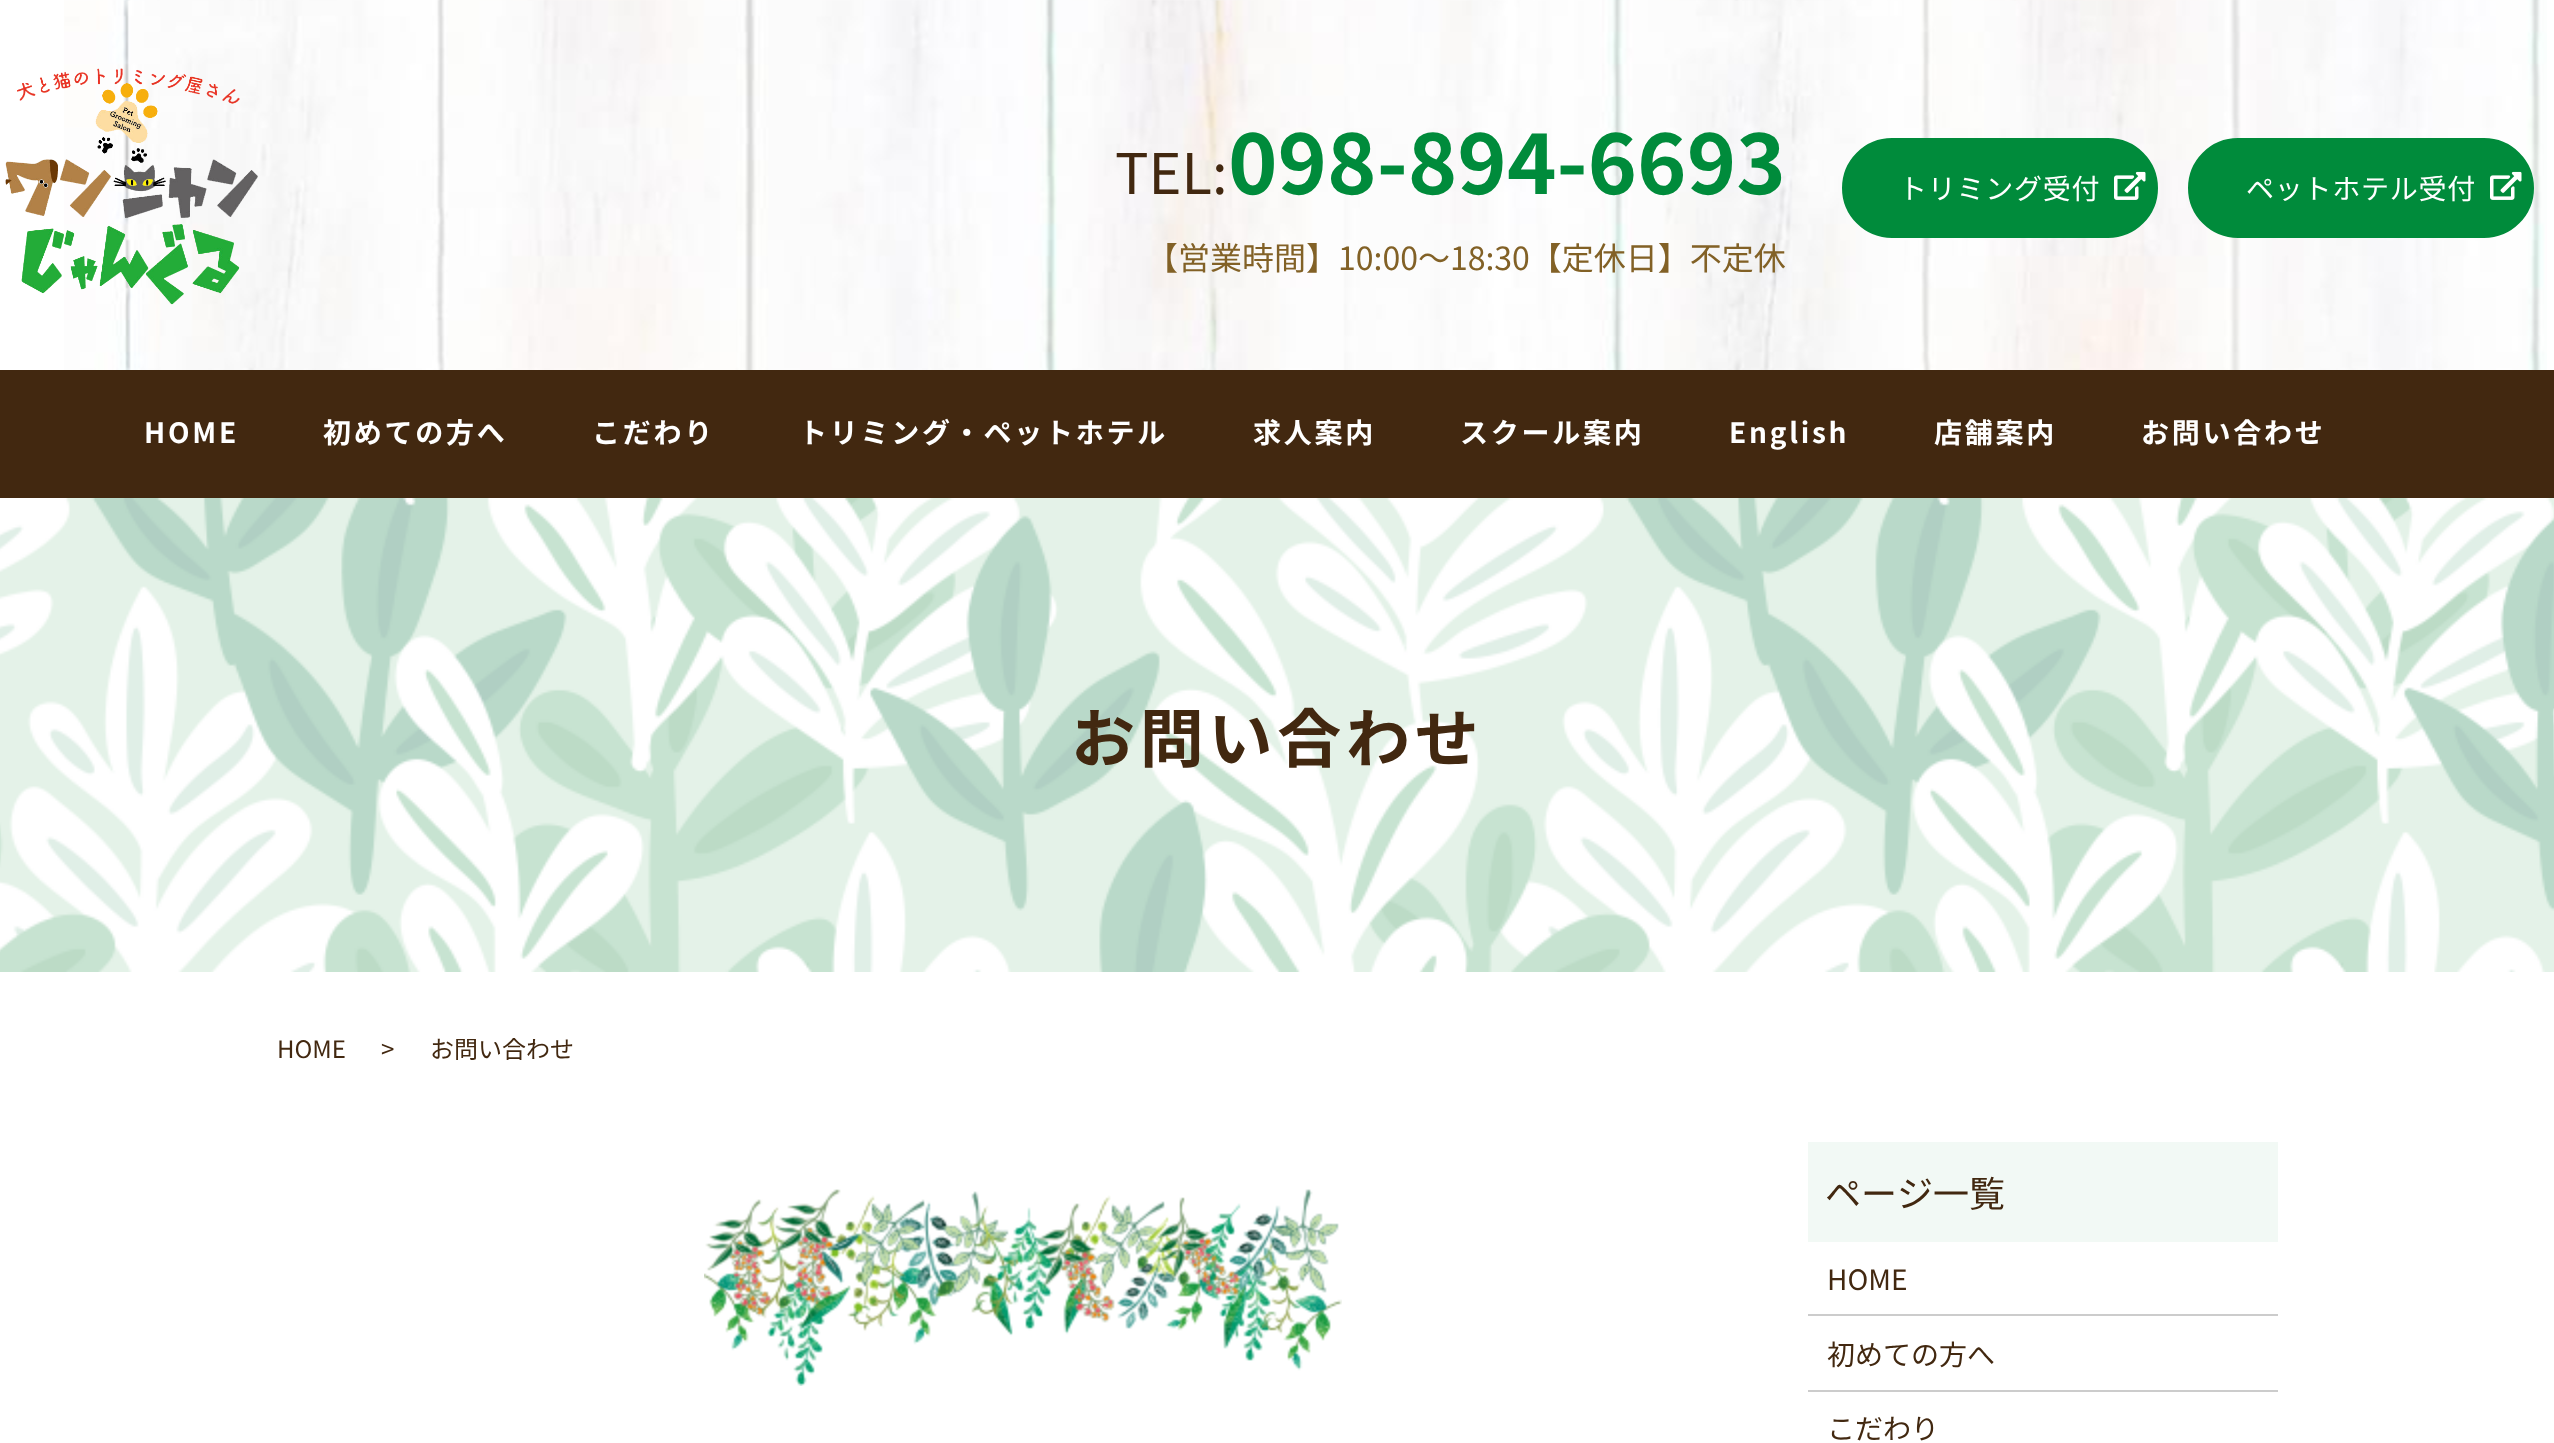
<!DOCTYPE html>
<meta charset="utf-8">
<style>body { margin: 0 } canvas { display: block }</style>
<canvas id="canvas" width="2554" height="1443"></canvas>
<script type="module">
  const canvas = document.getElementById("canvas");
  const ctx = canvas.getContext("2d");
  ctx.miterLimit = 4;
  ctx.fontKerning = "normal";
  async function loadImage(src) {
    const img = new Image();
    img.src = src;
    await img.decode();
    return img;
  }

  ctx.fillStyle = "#ffffff";
  ctx.fillRect(0, 0, 2554, 1443);
  ctx.drawImage(await loadImage("img1.png"), 64, 0, 2483, 370);
  ctx.drawImage(await loadImage("img2.png"), 5, 68, 253, 237);
  ctx.font = "56px Noto Sans JP";
  ctx.fillStyle = "#422810";
  ctx.fillText("TEL:", 1115, 194);
  ctx.font = "bold 84px Noto Sans JP";
  ctx.fillStyle = "#008b3b";
  ctx.fillText("098-894-6693", 1228, 194);
  ctx.font = "32px Noto Sans JP";
  ctx.fillStyle = "#826126";
  ctx.fillText("【営業時間】10:00～18:30【定休日】不定休", 1146, 270);
  ctx.fillStyle = "#008b3b";
  ctx.beginPath();
  ctx.roundRect(1843, 139, 314, 98, 49);
  ctx.fill();
  ctx.strokeStyle = "#008b3b";
  ctx.lineWidth = 2;
  ctx.stroke();
  ctx.letterSpacing = "0.75px";
  ctx.font = "28px Noto Sans JP";
  ctx.fillStyle = "#ffffff";
  ctx.fillText("トリミング受付", 1899, 199);
  ctx.drawImage(await loadImage("img3.png"), 2114, 171, 32, 29);
  ctx.fillStyle = "#008b3b";
  ctx.beginPath();
  ctx.roundRect(2189, 139, 344, 98, 49);
  ctx.fill();
  ctx.stroke();
  ctx.fillStyle = "#ffffff";
  ctx.fillText("ペットホテル受付", 2246, 199);
  ctx.drawImage(await loadImage("img3.png"), 2490, 171, 32, 29);
  ctx.fillStyle = "#422810";
  ctx.fillRect(0, 370, 2554, 128);
  ctx.letterSpacing = "2.75px";
  ctx.font = "bold 28px Noto Sans JP";
  ctx.fillStyle = "#ffffff";
  ctx.fillText("HOME", 144, 443);
  ctx.fillText("初めての方へ", 323, 443);
  ctx.fillText("こだわり", 592, 443);
  ctx.fillText("トリミング・ペットホテル", 799, 443);
  ctx.fillText("求人案内", 1253, 443);
  ctx.fillText("スクール案内", 1460, 443);
  ctx.fillText("English", 1729, 443);
  ctx.fillText("店舗案内", 1934, 443);
  ctx.fillText("お問い合わせ", 2141, 443);
  ctx.drawImage(await loadImage("img4.png"), 0, 498, 2554, 474);
  ctx.letterSpacing = "4.75px";
  ctx.font = "bold 64px Noto Sans JP";
  ctx.fillStyle = "#422810";
  ctx.fillText("お問い合わせ", 1071, 762);
  ctx.letterSpacing = "0px";
  ctx.font = "24px Noto Sans JP";
  ctx.fillText("HOME", 277, 1058);
  ctx.fillText(">", 381, 1058);
  ctx.fillText("お問い合わせ", 430, 1058);
  ctx.drawImage(await loadImage("img5.png"), 704, 1189, 638, 197);
  ctx.fillStyle = "#f2f9f5";
  ctx.fillRect(1808, 1142, 470, 100);
  ctx.font = "36px Noto Sans JP";
  ctx.fillStyle = "#422810";
  ctx.fillText("ページ一覧", 1825, 1207);
  ctx.fillStyle = "#cccccc";
  ctx.fillRect(1808, 1314, 470, 2);
  ctx.font = "28px Noto Sans JP";
  ctx.fillStyle = "#422810";
  ctx.fillText("HOME", 1827, 1290);
  ctx.fillStyle = "#cccccc";
  ctx.fillRect(1808, 1390, 470, 2);
  ctx.fillStyle = "#422810";
  ctx.fillText("初めての方へ", 1827, 1365);
  ctx.fillText("こだわり", 1827, 1439);
</script>
